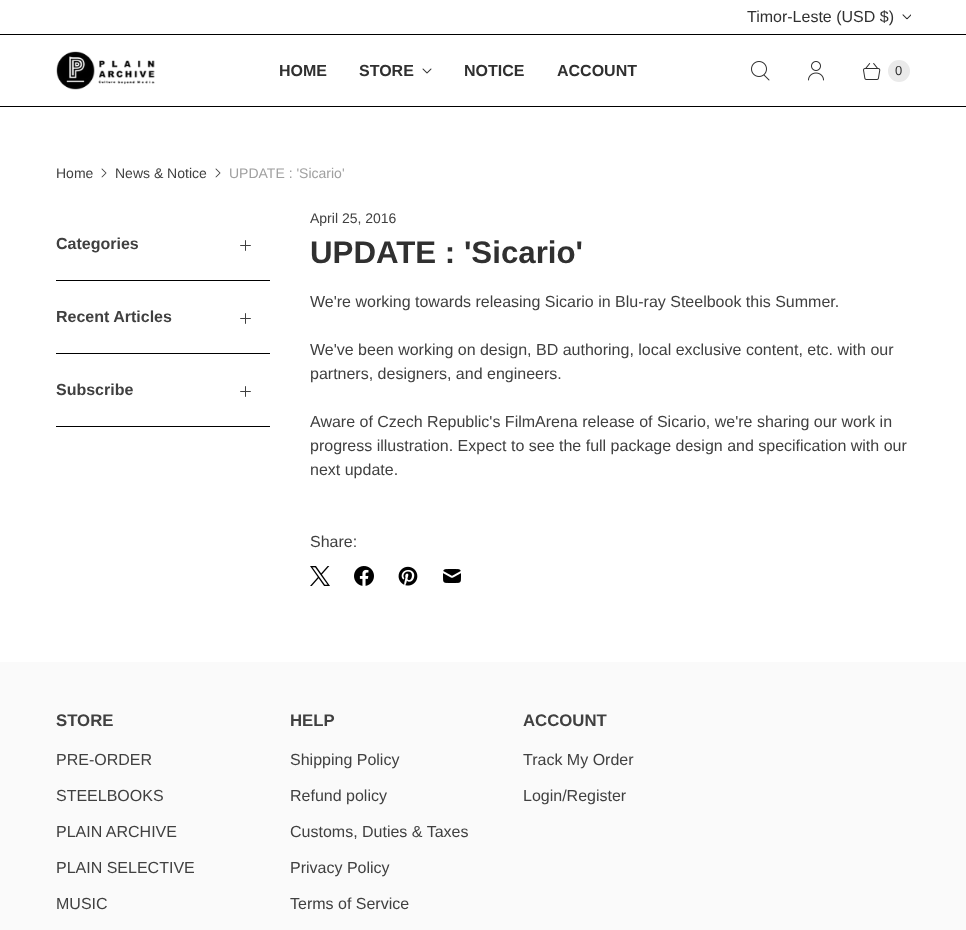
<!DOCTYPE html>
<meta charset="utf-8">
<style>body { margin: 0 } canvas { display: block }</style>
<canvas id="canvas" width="966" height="930"></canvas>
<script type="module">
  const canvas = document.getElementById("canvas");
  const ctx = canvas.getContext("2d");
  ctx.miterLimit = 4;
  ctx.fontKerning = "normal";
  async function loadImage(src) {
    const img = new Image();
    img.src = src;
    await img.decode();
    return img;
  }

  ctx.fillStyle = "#ffffff";
  ctx.fillRect(0, 0, 966, 930);
  ctx.fillStyle = "#000000";
  ctx.fillRect(0, 34, 966, 1);
  ctx.font = "16px Liberation Sans";
  ctx.fillStyle = "#303030";
  ctx.fillText("Timor-Leste (USD $)", 747, 22);
  ctx.drawImage(await loadImage("img1.png"), 902, 14, 9, 6);
  ctx.fillStyle = "#000000";
  ctx.fillRect(0, 106, 966, 1);
  ctx.drawImage(await loadImage("img2.png"), 56, 51, 99, 39);
  ctx.font = "bold 16px Liberation Sans";
  ctx.fillStyle = "#303030";
  ctx.fillText("HOME", 279, 76);
  ctx.fillText("STORE", 359, 76);
  ctx.drawImage(await loadImage("img3.png"), 422, 68, 10, 6);
  ctx.fillText("NOTICE", 464, 76);
  ctx.fillText("ACCOUNT", 557, 76);
  ctx.drawImage(await loadImage("img4.png"), 751, 61, 19, 20);
  ctx.drawImage(await loadImage("img5.png"), 808, 61, 16, 20);
  ctx.drawImage(await loadImage("img6.png"), 863, 63, 18, 17);
  ctx.fillStyle = "#eaeaea";
  ctx.beginPath();
  ctx.arc(899, 71, 11, 0, Math.PI * 2);
  ctx.fill();
  ctx.font = "13px Liberation Sans";
  ctx.fillStyle = "#303030";
  ctx.fillText("0", 895, 75);
  ctx.font = "14px Liberation Sans";
  ctx.fillStyle = "#404040";
  ctx.fillText("Home", 56, 178);
  ctx.drawImage(await loadImage("img7.png"), 101, 168, 6, 10);
  ctx.fillText("News & Notice", 115, 178);
  ctx.drawImage(await loadImage("img7.png"), 215, 168, 6, 10);
  ctx.fillStyle = "#a0a0a0";
  ctx.fillText("UPDATE : 'Sicario'", 229, 178);
  ctx.fillStyle = "#000000";
  ctx.fillRect(56, 280, 214, 1);
  ctx.font = "bold 16px Liberation Sans";
  ctx.fillStyle = "#404040";
  ctx.fillText("Categories", 56, 249);
  ctx.drawImage(await loadImage("img8.png"), 240, 240, 11, 11);
  ctx.fillStyle = "#000000";
  ctx.fillRect(56, 353, 214, 1);
  ctx.fillStyle = "#404040";
  ctx.fillText("Recent Articles", 56, 322);
  ctx.drawImage(await loadImage("img8.png"), 240, 313, 11, 11);
  ctx.fillStyle = "#000000";
  ctx.fillRect(56, 426, 214, 1);
  ctx.fillStyle = "#404040";
  ctx.fillText("Subscribe", 56, 395);
  ctx.drawImage(await loadImage("img8.png"), 240, 386, 11, 11);
  ctx.font = "14px Liberation Sans";
  ctx.fillText("April 25, 2016", 310, 223);
  ctx.font = "bold 31.25px Liberation Sans";
  ctx.fillStyle = "#303030";
  ctx.fillText("UPDATE : 'Sicario'", 310, 263);
  ctx.font = "16px Liberation Sans";
  ctx.fillStyle = "#404040";
  ctx.fillText("We're working towards releasing Sicario in Blu-ray Steelbook this Summer.", 310, 307);
  ctx.fillText("We've been working on design, BD authoring, local exclusive content, etc. with our", 310, 355);
  ctx.fillText("partners, designers, and engineers.", 310, 379);
  ctx.fillText("Aware of Czech Republic's FilmArena release of Sicario, we're sharing our work in", 310, 427);
  ctx.fillText("progress illustration. Expect to see the full package design and specification with our", 310, 451);
  ctx.fillText("next update.", 310, 475);
  ctx.fillText("Share:", 310, 547);
  ctx.drawImage(await loadImage("img9.png"), 310, 566, 20, 20);
  ctx.drawImage(await loadImage("img10.png"), 354, 566, 20, 20);
  ctx.drawImage(await loadImage("img11.png"), 398, 566, 20, 20);
  ctx.drawImage(await loadImage("img12.png"), 443, 569, 18, 14);
  ctx.fillStyle = "#fafafa";
  ctx.fillRect(0, 662, 966, 268);
  ctx.font = "bold 16.75px Liberation Sans";
  ctx.fillStyle = "#404040";
  ctx.fillText("STORE", 56, 726);
  ctx.font = "16px Liberation Sans";
  ctx.fillText("PRE-ORDER", 56, 765);
  ctx.fillText("STEELBOOKS", 56, 801);
  ctx.fillText("PLAIN ARCHIVE", 56, 837);
  ctx.fillText("PLAIN SELECTIVE", 56, 873);
  ctx.fillText("MUSIC", 56, 909);
  ctx.font = "bold 16.75px Liberation Sans";
  ctx.fillText("HELP", 290, 726);
  ctx.font = "16px Liberation Sans";
  ctx.fillText("Shipping Policy", 290, 765);
  ctx.fillText("Refund policy", 290, 801);
  ctx.fillText("Customs, Duties & Taxes", 290, 837);
  ctx.fillText("Privacy Policy", 290, 873);
  ctx.fillText("Terms of Service", 290, 909);
  ctx.font = "bold 16.75px Liberation Sans";
  ctx.fillText("ACCOUNT", 523, 726);
  ctx.font = "16px Liberation Sans";
  ctx.fillText("Track My Order", 523, 765);
  ctx.fillText("Login/Register", 523, 801);
</script>
